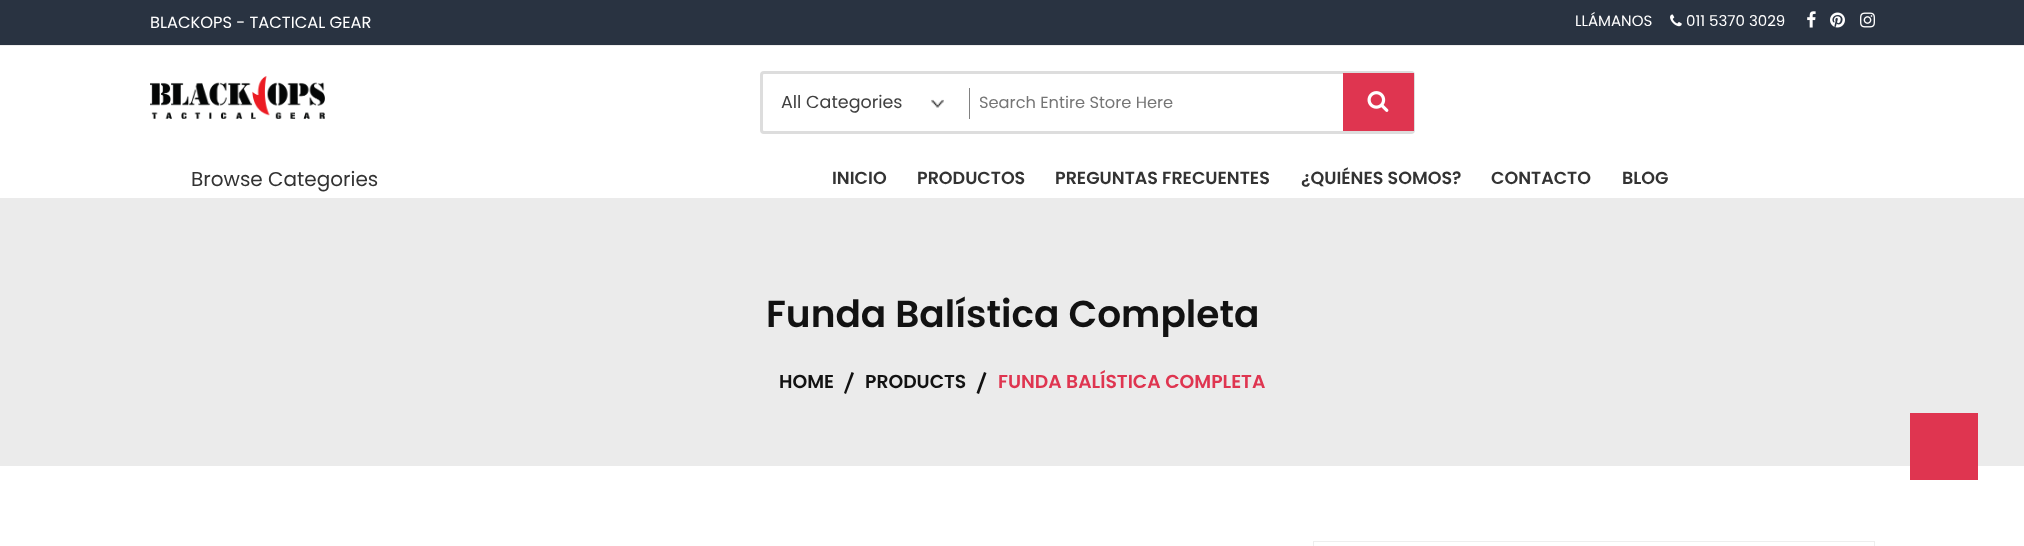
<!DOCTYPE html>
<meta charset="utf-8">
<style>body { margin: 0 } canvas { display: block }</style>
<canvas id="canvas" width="2024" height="546"></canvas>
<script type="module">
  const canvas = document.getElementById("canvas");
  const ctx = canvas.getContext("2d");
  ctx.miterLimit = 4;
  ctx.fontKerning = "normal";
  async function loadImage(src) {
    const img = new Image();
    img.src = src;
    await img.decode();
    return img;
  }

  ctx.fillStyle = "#ffffff";
  ctx.fillRect(0, 0, 2024, 546);
  ctx.fillStyle = "#293341";
  ctx.fillRect(0, 0, 2024, 45);
  ctx.fillStyle = "#eeeeee";
  ctx.fillRect(0, 45, 2024, 1);
  ctx.font = "16.25px Poppins";
  ctx.fillStyle = "#ffffff";
  ctx.fillText("BLACKOPS - TACTICAL GEAR", 150, 28);
  ctx.font = "15px Poppins";
  ctx.fillText("LLÁMANOS", 1575, 26);
  ctx.drawImage(await loadImage("img1.png"), 1670, 14, 12, 13);
  ctx.fillText("011 5370 3029", 1686, 26);
  ctx.drawImage(await loadImage("img2.png"), 1807, 11, 9, 17);
  ctx.drawImage(await loadImage("img3.png"), 1830, 12, 15, 16);
  ctx.drawImage(await loadImage("img4.png"), 1860, 12, 15, 16);
  ctx.drawImage(await loadImage("img5.png"), 150, 76, 175, 43);
  ctx.beginPath();
  ctx.roundRect(761.5, 72.5, 652, 60, 2.5);
  ctx.strokeStyle = "#dddddd";
  ctx.lineWidth = 3;
  ctx.stroke();
  ctx.drawImage(await loadImage("img6.png"), 931, 99, 13, 9);
  ctx.font = "17.5px Poppins";
  ctx.fillStyle = "#404040";
  ctx.fillText("All Categories", 781, 108);
  ctx.fillStyle = "#818181";
  ctx.fillRect(969, 88, 1, 31);
  ctx.font = "16.25px Poppins";
  ctx.fillStyle = "#757575";
  ctx.fillText("Search Entire Store Here", 979, 108);
  ctx.fillStyle = "#df3550";
  ctx.fillRect(1343, 73, 71, 58);
  ctx.drawImage(await loadImage("img7.png"), 1367, 91, 22, 21);
  ctx.font = "20px Poppins";
  ctx.fillStyle = "#333333";
  ctx.fillText("Browse Categories", 191, 186);
  ctx.font = "600 17.5px Poppins";
  ctx.fillText("INICIO", 832, 184);
  ctx.fillText("PRODUCTOS", 917, 184);
  ctx.fillText("PREGUNTAS FRECUENTES", 1055, 184);
  ctx.fillText("¿QUIÉNES SOMOS?", 1301, 184);
  ctx.fillText("CONTACTO", 1491, 184);
  ctx.fillText("BLOG", 1622, 184);
  ctx.fillStyle = "#ebebeb";
  ctx.fillRect(0, 198, 2024, 268);
  ctx.font = "600 37.5px Poppins";
  ctx.fillStyle = "#121212";
  ctx.fillText("Funda Balística Completa", 766, 327);
  ctx.font = "600 18.75px Poppins";
  ctx.fillText("HOME", 779, 388);
  ctx.beginPath();
  ctx.moveTo(851.5, 372);
  ctx.lineTo(854, 373);
  ctx.lineTo(846, 394);
  ctx.lineTo(844, 393);
  ctx.closePath();
  ctx.fill();
  ctx.fillText("PRODUCTS", 865, 388);
  ctx.beginPath();
  ctx.moveTo(984, 372);
  ctx.lineTo(986.5, 373);
  ctx.lineTo(979, 394);
  ctx.lineTo(976.5, 393);
  ctx.closePath();
  ctx.fill();
  ctx.fillStyle = "#df3550";
  ctx.fillText("FUNDA BALÍSTICA COMPLETA", 998, 388);
  ctx.fillRect(1910, 413, 68, 67);
  ctx.strokeStyle = "#eeeeee";
  ctx.lineWidth = 1;
  ctx.strokeRect(1313.5, 541.5, 561, 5);
</script>
